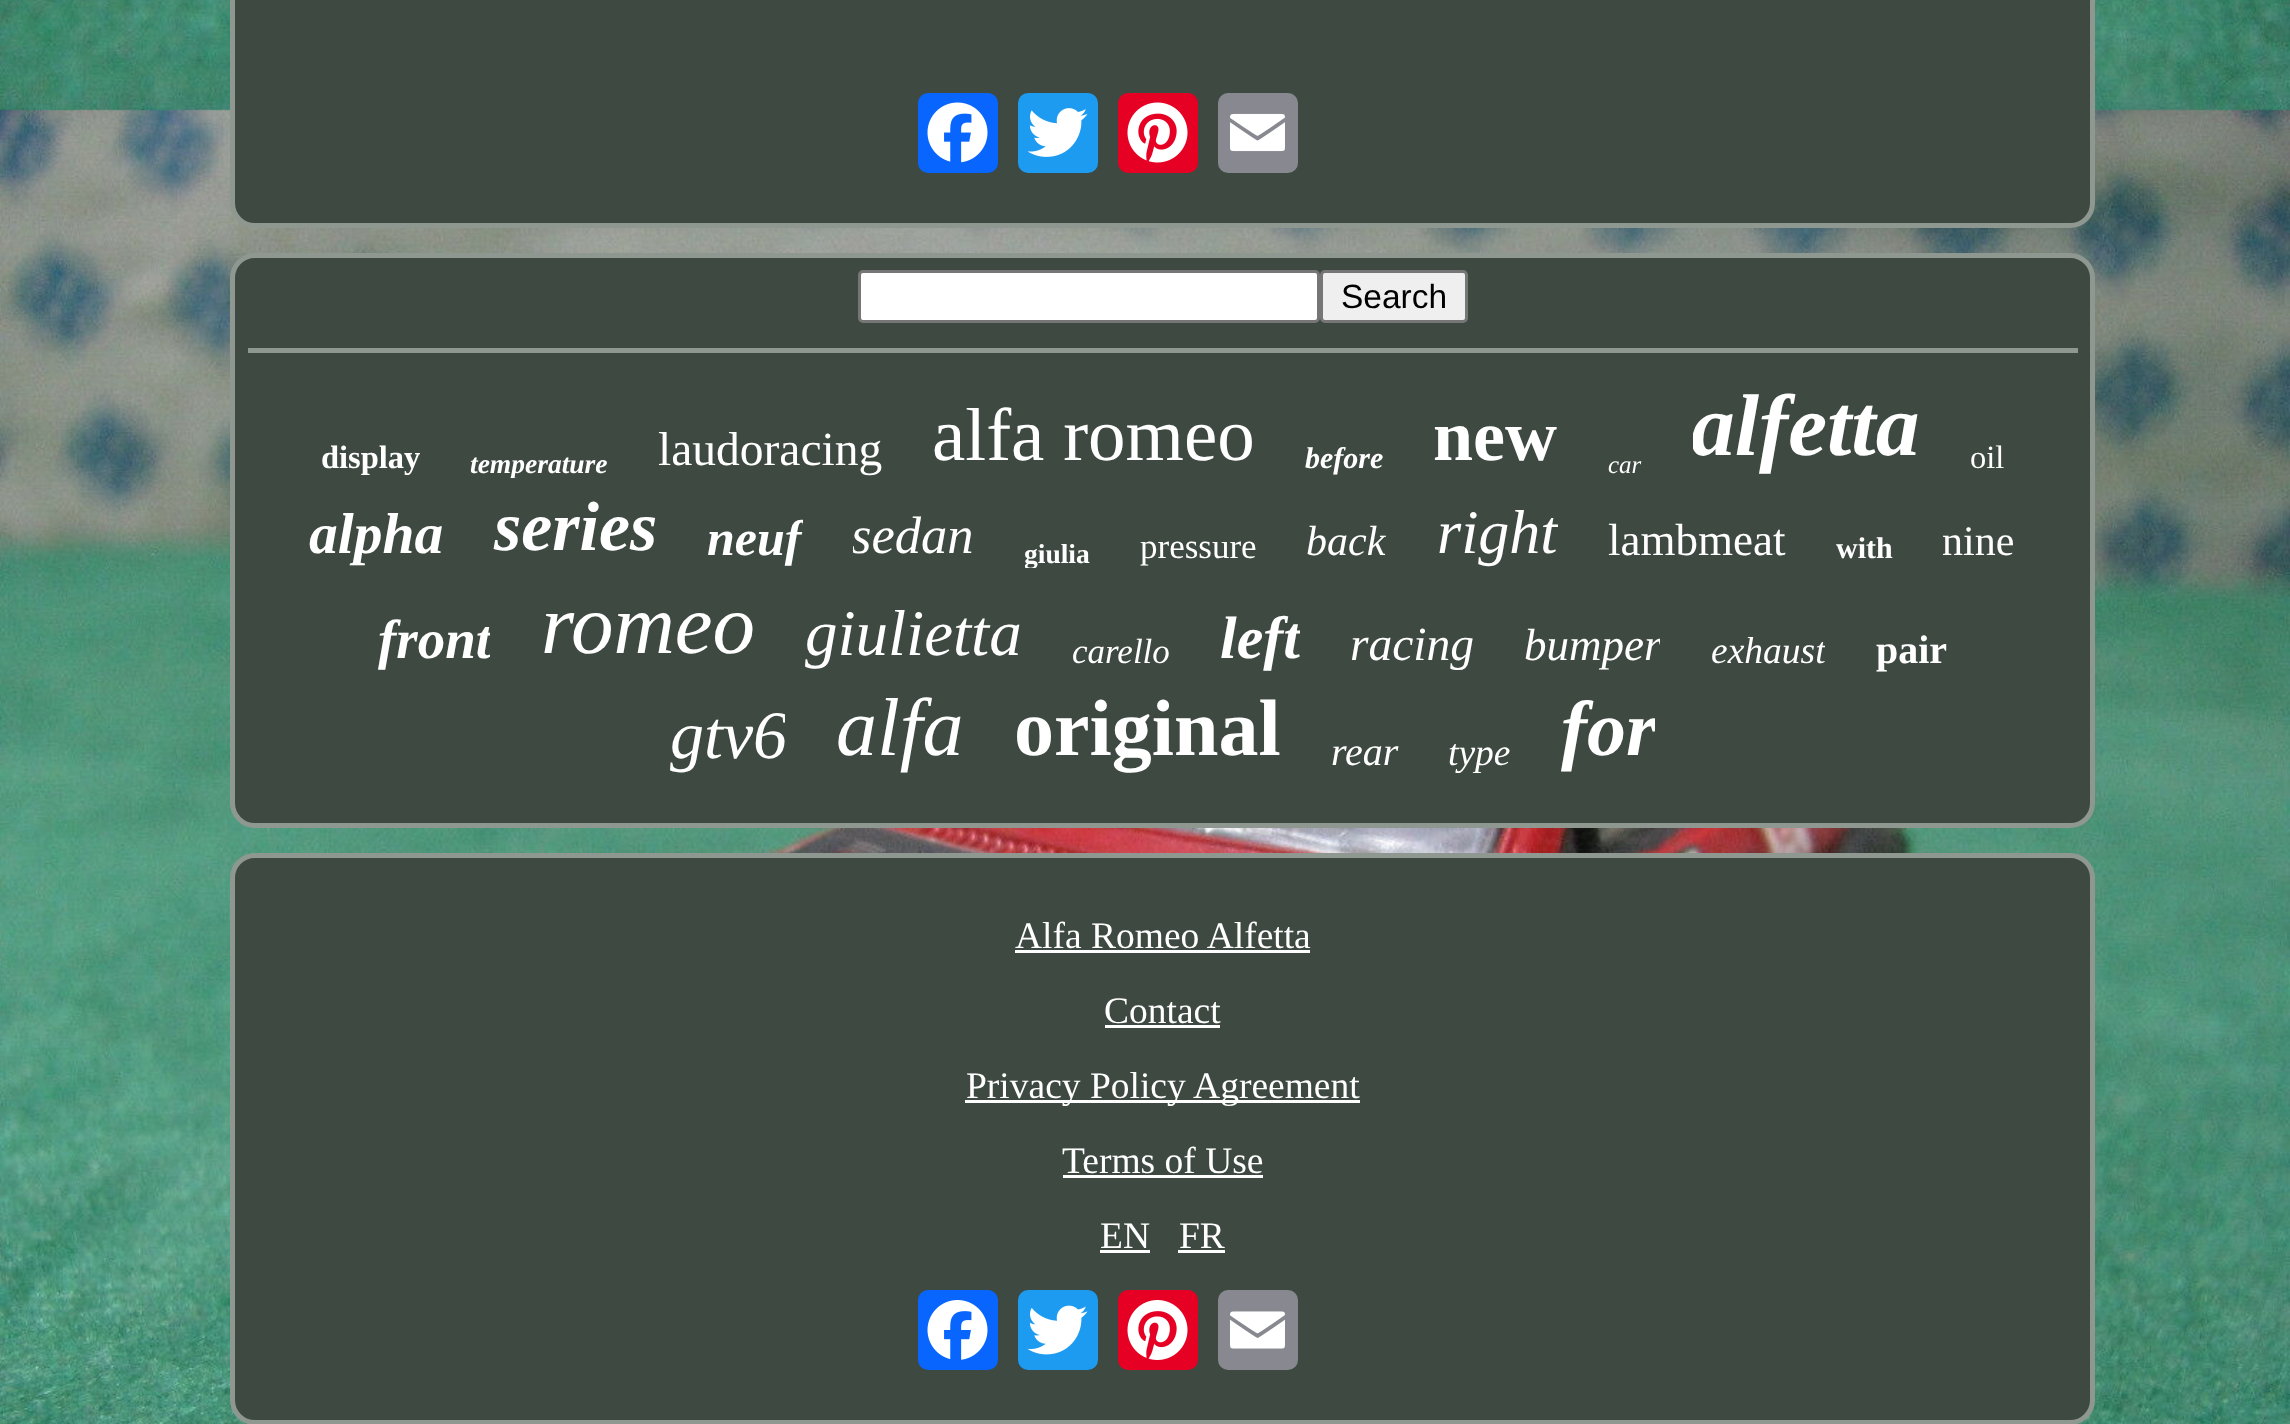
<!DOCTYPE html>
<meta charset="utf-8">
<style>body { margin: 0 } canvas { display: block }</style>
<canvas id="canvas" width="2290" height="1424"></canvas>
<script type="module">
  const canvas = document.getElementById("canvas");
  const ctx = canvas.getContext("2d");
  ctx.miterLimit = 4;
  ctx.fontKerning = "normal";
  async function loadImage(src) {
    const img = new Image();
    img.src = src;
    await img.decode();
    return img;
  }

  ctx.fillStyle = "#ffffff";
  ctx.fillRect(0, 0, 2290, 1424);
  ctx.drawImage(await loadImage("img1.png"), 0, 0, 2290, 1424);
  ctx.fillStyle = "#3e4941";
  ctx.beginPath();
  ctx.roundRect(232.5, -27.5, 1860, 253, 22.5);
  ctx.fill();
  ctx.strokeStyle = "#8e9890";
  ctx.lineWidth = 5;
  ctx.stroke();
  ctx.fillStyle = "#0866ff";
  ctx.beginPath();
  ctx.roundRect(918, 93, 80, 80, 10);
  ctx.fill();
  ctx.drawImage(await loadImage("img2.png"), 927, 102, 61, 61);
  ctx.fillStyle = "#1d9bf0";
  ctx.beginPath();
  ctx.roundRect(1018, 93, 80, 80, 10);
  ctx.fill();
  ctx.drawImage(await loadImage("img3.png"), 1027, 108, 61, 49);
  ctx.fillStyle = "#e60023";
  ctx.beginPath();
  ctx.roundRect(1118, 93, 80, 80, 10);
  ctx.fill();
  ctx.drawImage(await loadImage("img4.png"), 1127, 102, 61, 61);
  ctx.fillStyle = "#888990";
  ctx.beginPath();
  ctx.roundRect(1218, 93, 80, 80, 10);
  ctx.fill();
  ctx.drawImage(await loadImage("img5.png"), 1230, 113, 55, 39);
  ctx.fillStyle = "#3e4941";
  ctx.beginPath();
  ctx.roundRect(232.5, 255.5, 1860, 570, 22.5);
  ctx.fill();
  ctx.stroke();
  ctx.fillStyle = "#ffffff";
  ctx.beginPath();
  ctx.roundRect(859.5, 271.5, 459, 50, 3.5);
  ctx.fill();
  ctx.strokeStyle = "#767676";
  ctx.lineWidth = 3;
  ctx.stroke();
  ctx.fillStyle = "#efefef";
  ctx.beginPath();
  ctx.roundRect(1321.5, 271.5, 145, 50, 3.5);
  ctx.fill();
  ctx.stroke();
  ctx.font = "33.5px Liberation Sans";
  ctx.fillStyle = "#000000";
  ctx.fillText("Search", 1341, 308);
  ctx.fillStyle = "#8e9890";
  ctx.fillRect(248, 348, 1830, 5);
  ctx.font = "bold 32.5px Liberation Serif";
  ctx.fillStyle = "#ffffff";
  ctx.fillText("display", 321, 468);
  ctx.save();
  ctx.beginPath();
  ctx.rect(470, 448, 138, 30);
  ctx.clip();
  ctx.font = "italic bold 27.5px Liberation Serif";
  ctx.fillText("temperature", 470, 473);
  ctx.restore();
  ctx.font = "47.5px Liberation Serif";
  ctx.fillText("laudoracing", 658, 465);
  ctx.font = "75px Liberation Serif";
  ctx.fillText("alfa romeo", 932, 460);
  ctx.font = "italic bold 30px Liberation Serif";
  ctx.fillText("before", 1305, 468);
  ctx.font = "bold 72px Liberation Serif";
  ctx.fillText("new", 1433, 460);
  ctx.font = "italic 25px Liberation Serif";
  ctx.fillText("car", 1608, 473);
  ctx.save();
  ctx.beginPath();
  ctx.rect(1693, 378, 227, 100);
  ctx.clip();
  ctx.font = "italic bold 87.5px Liberation Serif";
  ctx.fillText("alfetta", 1691, 455);
  ctx.restore();
  ctx.font = "32.5px Liberation Serif";
  ctx.fillText("oil", 1970, 468);
  ctx.font = "italic bold 57.5px Liberation Serif";
  ctx.fillText("alpha", 309, 553);
  ctx.font = "italic bold 70px Liberation Serif";
  ctx.fillText("series", 494, 550);
  ctx.save();
  ctx.beginPath();
  ctx.rect(708, 510, 95, 58);
  ctx.clip();
  ctx.font = "italic bold 50px Liberation Serif";
  ctx.fillText("neuf", 707, 555);
  ctx.restore();
  ctx.save();
  ctx.beginPath();
  ctx.rect(853, 505, 122, 63);
  ctx.clip();
  ctx.font = "italic 52.5px Liberation Serif";
  ctx.fillText("sedan", 851, 553);
  ctx.restore();
  ctx.save();
  ctx.beginPath();
  ctx.rect(1025, 538, 65, 30);
  ctx.clip();
  ctx.font = "bold 27.5px Liberation Serif";
  ctx.fillText("giulia", 1024, 563);
  ctx.restore();
  ctx.font = "35px Liberation Serif";
  ctx.fillText("pressure", 1140, 558);
  ctx.font = "italic 42px Liberation Serif";
  ctx.fillText("back", 1306, 555);
  ctx.save();
  ctx.beginPath();
  ctx.rect(1438, 498, 120, 70);
  ctx.clip();
  ctx.font = "italic 62px Liberation Serif";
  ctx.fillText("right", 1437, 553);
  ctx.restore();
  ctx.font = "45px Liberation Serif";
  ctx.fillText("lambmeat", 1608, 555);
  ctx.font = "bold 30px Liberation Serif";
  ctx.fillText("with", 1836, 558);
  ctx.font = "42px Liberation Serif";
  ctx.fillText("nine", 1942, 555);
  ctx.save();
  ctx.beginPath();
  ctx.rect(378, 608, 112, 65);
  ctx.clip();
  ctx.font = "italic bold 55px Liberation Serif";
  ctx.fillText("front", 378, 658);
  ctx.restore();
  ctx.font = "italic 85px Liberation Serif";
  ctx.fillText("romeo", 541, 653);
  ctx.font = "italic 65px Liberation Serif";
  ctx.fillText("giulietta", 805, 655);
  ctx.font = "italic 35px Liberation Serif";
  ctx.fillText("carello", 1072, 663);
  ctx.save();
  ctx.beginPath();
  ctx.rect(1220, 605, 80, 68);
  ctx.clip();
  ctx.font = "italic bold 60px Liberation Serif";
  ctx.fillText("left", 1220, 658);
  ctx.restore();
  ctx.font = "italic 47.5px Liberation Serif";
  ctx.fillText("racing", 1350, 660);
  ctx.save();
  ctx.beginPath();
  ctx.rect(1523, 620, 137, 53);
  ctx.clip();
  ctx.font = "italic 45px Liberation Serif";
  ctx.fillText("bumper", 1524, 660);
  ctx.restore();
  ctx.save();
  ctx.beginPath();
  ctx.rect(1710, 630, 115, 43);
  ctx.clip();
  ctx.font = "italic 37.5px Liberation Serif";
  ctx.fillText("exhaust", 1711, 663);
  ctx.restore();
  ctx.font = "bold 40px Liberation Serif";
  ctx.fillText("pair", 1876, 663);
  ctx.save();
  ctx.beginPath();
  ctx.rect(670, 698, 115, 77);
  ctx.clip();
  ctx.font = "italic 68px Liberation Serif";
  ctx.fillText("gtv6", 670, 758);
  ctx.restore();
  ctx.font = "italic 82px Liberation Serif";
  ctx.fillText("alfa", 836, 755);
  ctx.font = "bold 80px Liberation Serif";
  ctx.fillText("original", 1014, 755);
  ctx.font = "italic 40px Liberation Serif";
  ctx.fillText("rear", 1331, 765);
  ctx.font = "italic 37.5px Liberation Serif";
  ctx.fillText("type", 1448, 765);
  ctx.save();
  ctx.beginPath();
  ctx.rect(1560, 685, 95, 90);
  ctx.clip();
  ctx.font = "italic bold 78px Liberation Serif";
  ctx.fillText("for", 1561, 755);
  ctx.restore();
  ctx.fillStyle = "#3e4941";
  ctx.beginPath();
  ctx.roundRect(232.5, 855.5, 1860, 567, 22.5);
  ctx.fill();
  ctx.strokeStyle = "#8e9890";
  ctx.lineWidth = 5;
  ctx.stroke();
  ctx.font = "37.5px Liberation Serif";
  ctx.fillStyle = "#ffffff";
  ctx.fillText("Alfa Romeo Alfetta", 1015, 948);
  ctx.fillRect(1015, 950, 295, 3);
  ctx.fillText("Contact", 1104, 1023);
  ctx.fillRect(1105, 1025, 115, 3);
  ctx.fillRect(965, 1100, 395, 3);
  ctx.fillText("Privacy Policy Agreement", 966, 1098);
  ctx.fillText("Terms of Use", 1062, 1173);
  ctx.fillRect(1063, 1175, 200, 3);
  ctx.fillText("EN", 1100, 1248);
  ctx.fillRect(1100, 1250, 50, 3);
  ctx.fillText("FR", 1179, 1248);
  ctx.fillRect(1178, 1250, 47, 3);
  ctx.fillStyle = "#0866ff";
  ctx.beginPath();
  ctx.roundRect(918, 1290, 80, 80, 10);
  ctx.fill();
  ctx.drawImage(await loadImage("img6.png"), 927, 1300, 61, 60);
  ctx.fillStyle = "#1d9bf0";
  ctx.beginPath();
  ctx.roundRect(1018, 1290, 80, 80, 10);
  ctx.fill();
  ctx.drawImage(await loadImage("img7.png"), 1027, 1305, 61, 50);
  ctx.fillStyle = "#e60023";
  ctx.beginPath();
  ctx.roundRect(1118, 1290, 80, 80, 10);
  ctx.fill();
  ctx.drawImage(await loadImage("img8.png"), 1127, 1300, 61, 60);
  ctx.fillStyle = "#888990";
  ctx.beginPath();
  ctx.roundRect(1218, 1290, 80, 80, 10);
  ctx.fill();
  ctx.drawImage(await loadImage("img9.png"), 1230, 1311, 55, 38);
</script>
